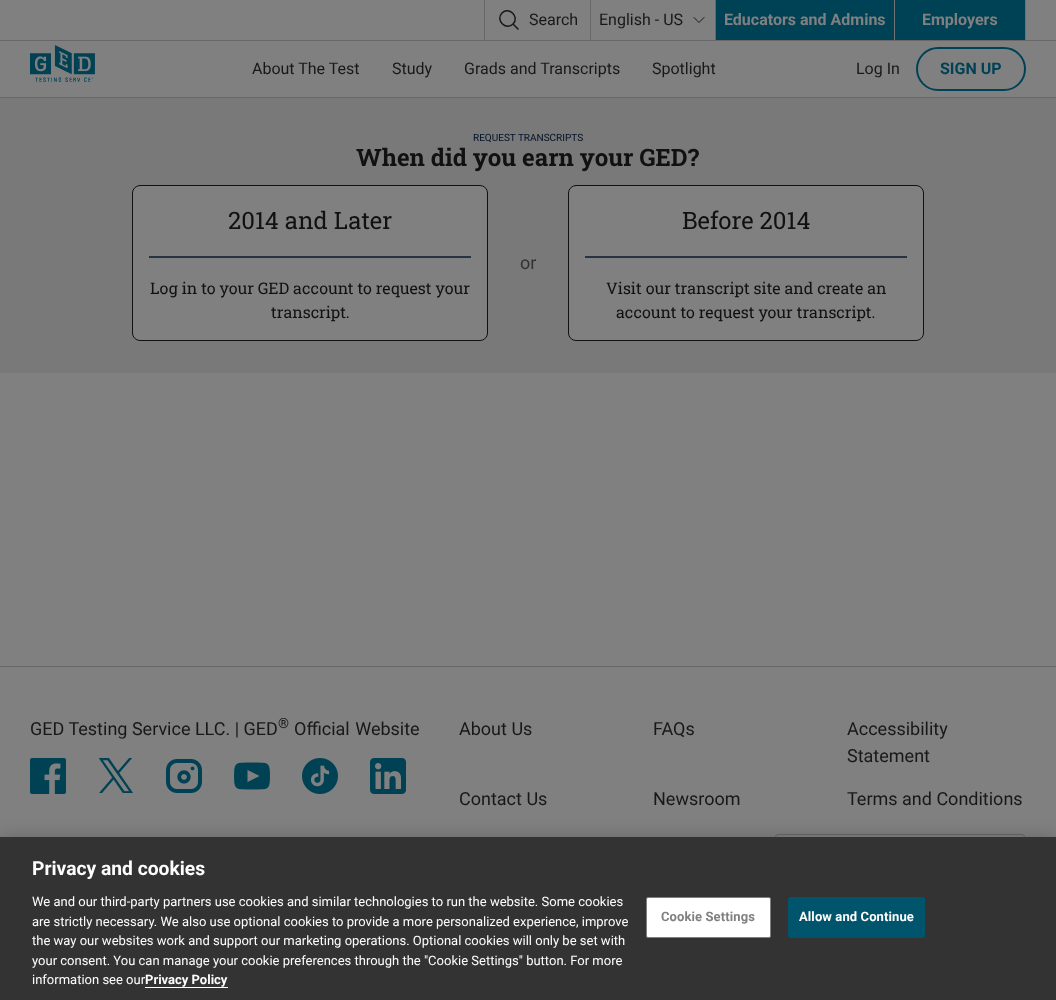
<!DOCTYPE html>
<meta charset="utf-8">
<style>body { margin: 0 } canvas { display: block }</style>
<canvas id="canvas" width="1056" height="1000"></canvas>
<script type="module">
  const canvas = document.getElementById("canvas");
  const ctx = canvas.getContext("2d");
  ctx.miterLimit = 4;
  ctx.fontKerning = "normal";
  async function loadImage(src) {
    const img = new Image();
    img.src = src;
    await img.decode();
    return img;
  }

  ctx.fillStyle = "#808080";
  ctx.fillRect(0, 0, 1056, 1000);
  ctx.fillStyle = "#686868";
  ctx.fillRect(590, 0, 1, 40);
  ctx.fillRect(484, 0, 1, 40);
  ctx.beginPath();
  ctx.moveTo(518, 29);
  ctx.lineTo(513, 24);
  ctx.moveTo(513, 24);
  ctx.bezierCurveTo(520, 17, 509, 6, 502, 13);
  ctx.bezierCurveTo(495, 20, 506, 31, 513, 24);
  ctx.closePath();
  ctx.strokeStyle = "#181818";
  ctx.lineWidth = 1.5;
  ctx.lineCap = "round";
  ctx.lineJoin = "round";
  ctx.stroke();
  ctx.font = "16px Roboto";
  ctx.fillStyle = "#181818";
  ctx.fillText("Search", 529, 25);
  ctx.fillStyle = "#686868";
  ctx.fillRect(715, 0, 1, 40);
  ctx.fillStyle = "#181818";
  ctx.fillText("English - US", 599, 25);
  ctx.beginPath();
  ctx.moveTo(704, 17.5);
  ctx.lineTo(699, 22.5);
  ctx.lineTo(694, 17.5);
  ctx.lineWidth = 1;
  ctx.stroke();
  ctx.fillStyle = "#737373";
  ctx.fillRect(894, 0, 1, 40);
  ctx.fillStyle = "#004255";
  ctx.fillRect(716, 0, 178, 40);
  ctx.font = "bold 16px Roboto";
  ctx.fillStyle = "#808080";
  ctx.fillText("Educators and Admins", 724, 25);
  ctx.fillStyle = "#737373";
  ctx.fillRect(1025, 0, 1, 40);
  ctx.fillStyle = "#004255";
  ctx.fillRect(895, 0, 130, 40);
  ctx.fillStyle = "#808080";
  ctx.fillText("Employers", 922, 25);
  ctx.fillStyle = "#686868";
  ctx.fillRect(0, 40, 1056, 1);
  ctx.fillRect(0, 97, 1056, 1);
  ctx.drawImage(await loadImage("img1.png"), 30, 45, 65, 37);
  ctx.font = "16px Roboto";
  ctx.fillStyle = "#181818";
  ctx.fillText("About The Test", 252, 74);
  ctx.fillText("Study", 392, 74);
  ctx.fillText("Grads and Transcripts", 464, 74);
  ctx.fillText("Spotlight", 652, 74);
  ctx.fillText("Log In", 856, 74);
  ctx.beginPath();
  ctx.roundRect(917, 48, 108, 42, 21);
  ctx.strokeStyle = "#004255";
  ctx.lineWidth = 2;
  ctx.lineJoin = "miter";
  ctx.stroke();
  ctx.font = "bold 16px Roboto";
  ctx.fillStyle = "#004255";
  ctx.fillText("SIGN UP", 940, 74);
  ctx.fillStyle = "#797979";
  ctx.fillRect(0, 98, 1056, 275);
  ctx.font = "10px Roboto";
  ctx.fillStyle = "#001227";
  ctx.fillText("REQUEST TRANSCRIPTS", 473, 141);
  ctx.font = "bold 24px Roboto Slab";
  ctx.fillStyle = "#111111";
  ctx.fillText("When did you earn your GED?", 356, 166);
  ctx.fillStyle = "#808080";
  ctx.beginPath();
  ctx.roundRect(132.5, 185.5, 355, 155, 7.5);
  ctx.fill();
  ctx.strokeStyle = "#111111";
  ctx.lineWidth = 1;
  ctx.stroke();
  ctx.font = "24px Roboto Slab";
  ctx.fillStyle = "#111111";
  ctx.fillText("2014 and Later", 228, 229);
  ctx.fillStyle = "#273341";
  ctx.fillRect(149, 256, 322, 2);
  ctx.font = "16px Roboto Slab";
  ctx.fillStyle = "#111111";
  ctx.fillText("Log in to your GED account to request your", 150, 294);
  ctx.fillText("transcript.", 271, 318);
  ctx.font = "18px Roboto";
  ctx.fillStyle = "#323232";
  ctx.fillText("or", 520, 269);
  ctx.fillStyle = "#808080";
  ctx.beginPath();
  ctx.roundRect(568.5, 185.5, 355, 155, 7.5);
  ctx.fill();
  ctx.stroke();
  ctx.font = "24px Roboto Slab";
  ctx.fillStyle = "#111111";
  ctx.fillText("Before 2014", 682, 229);
  ctx.fillStyle = "#273341";
  ctx.fillRect(585, 256, 322, 2);
  ctx.font = "16px Roboto Slab";
  ctx.fillStyle = "#111111";
  ctx.fillText("Visit our transcript site and create an", 606, 294);
  ctx.fillText("account to request your transcript.", 616, 318);
  ctx.fillStyle = "#686868";
  ctx.fillRect(0, 666, 1056, 1);
  ctx.font = "18px Roboto";
  ctx.fillStyle = "#181818";
  ctx.fillText("GED Testing Service LLC. | GED", 30, 735);
  ctx.font = "14px Roboto";
  ctx.fillText("®", 278, 728);
  ctx.wordSpacing = "1px";
  ctx.font = "18px Roboto";
  ctx.fillText("Official Website", 294, 735);
  ctx.drawImage(await loadImage("img2.png"), 30, 758, 36, 36);
  ctx.drawImage(await loadImage("img3.png"), 99, 758, 34, 35);
  ctx.drawImage(await loadImage("img4.png"), 166, 759, 36, 34);
  ctx.drawImage(await loadImage("img5.png"), 234, 762, 36, 28);
  ctx.drawImage(await loadImage("img6.png"), 302, 758, 36, 36);
  ctx.drawImage(await loadImage("img7.png"), 370, 758, 36, 36);
  ctx.wordSpacing = "0px";
  ctx.fillText("About Us", 459, 735);
  ctx.fillText("FAQs", 653, 735);
  ctx.fillText("Accessibility", 847, 735);
  ctx.fillText("Statement", 847, 762);
  ctx.fillText("Contact Us", 459, 805);
  ctx.fillText("Newsroom", 653, 805);
  ctx.fillText("Terms and Conditions", 847, 805);
  ctx.beginPath();
  ctx.roundRect(774.5, 834.5, 251, 53, 4.5);
  ctx.strokeStyle = "#676767";
  ctx.stroke();
  ctx.fillStyle = "rgba(0, 0, 0, 0.2)";
  ctx.filter = "blur(9px)";
  ctx.beginPath();
  ctx.rect(0, 837, 1056, 163);
  ctx.fill();
  ctx.filter = "none";
  ctx.fillStyle = "#333333";
  ctx.fillRect(0, 837, 1056, 163);
  ctx.font = "bold 19.25px Roboto";
  ctx.fillStyle = "#fefefe";
  ctx.fillText("Privacy and cookies", 32, 875);
  ctx.font = "13px Roboto";
  ctx.fillText("We and our third-party partners use cookies and similar technologies to run the website. Some cookies", 32, 906);
  ctx.fillText("are strictly necessary. We also use optional cookies to provide a more personalized experience, improve", 32, 926);
  ctx.fillText("the way our websites work and support our marketing operations. Optional cookies will only be set with", 32, 945);
  ctx.fillText("your consent. You can manage your cookie preferences through the \"Cookie Settings\" button. For more", 32, 965);
  ctx.fillText("information see our", 32, 984);
  ctx.font = "bold 13px Roboto";
  ctx.fillText("Privacy Policy", 145, 984);
  ctx.fillRect(145, 987, 83, 1);
  ctx.fillStyle = "#ffffff";
  ctx.beginPath();
  ctx.roundRect(646.5, 897.5, 124, 40, 1.5);
  ctx.fill();
  ctx.strokeStyle = "#808080";
  ctx.stroke();
  ctx.letterSpacing = "0.1px";
  ctx.fillStyle = "#808080";
  ctx.fillText("Cookie Settings", 661, 921);
  ctx.fillStyle = "#00546c";
  ctx.beginPath();
  ctx.roundRect(788.5, 897.5, 136, 40, 1.5);
  ctx.fill();
  ctx.strokeStyle = "#00546c";
  ctx.stroke();
  ctx.fillStyle = "#fefefe";
  ctx.fillText("Allow and Continue", 799, 921);
</script>
